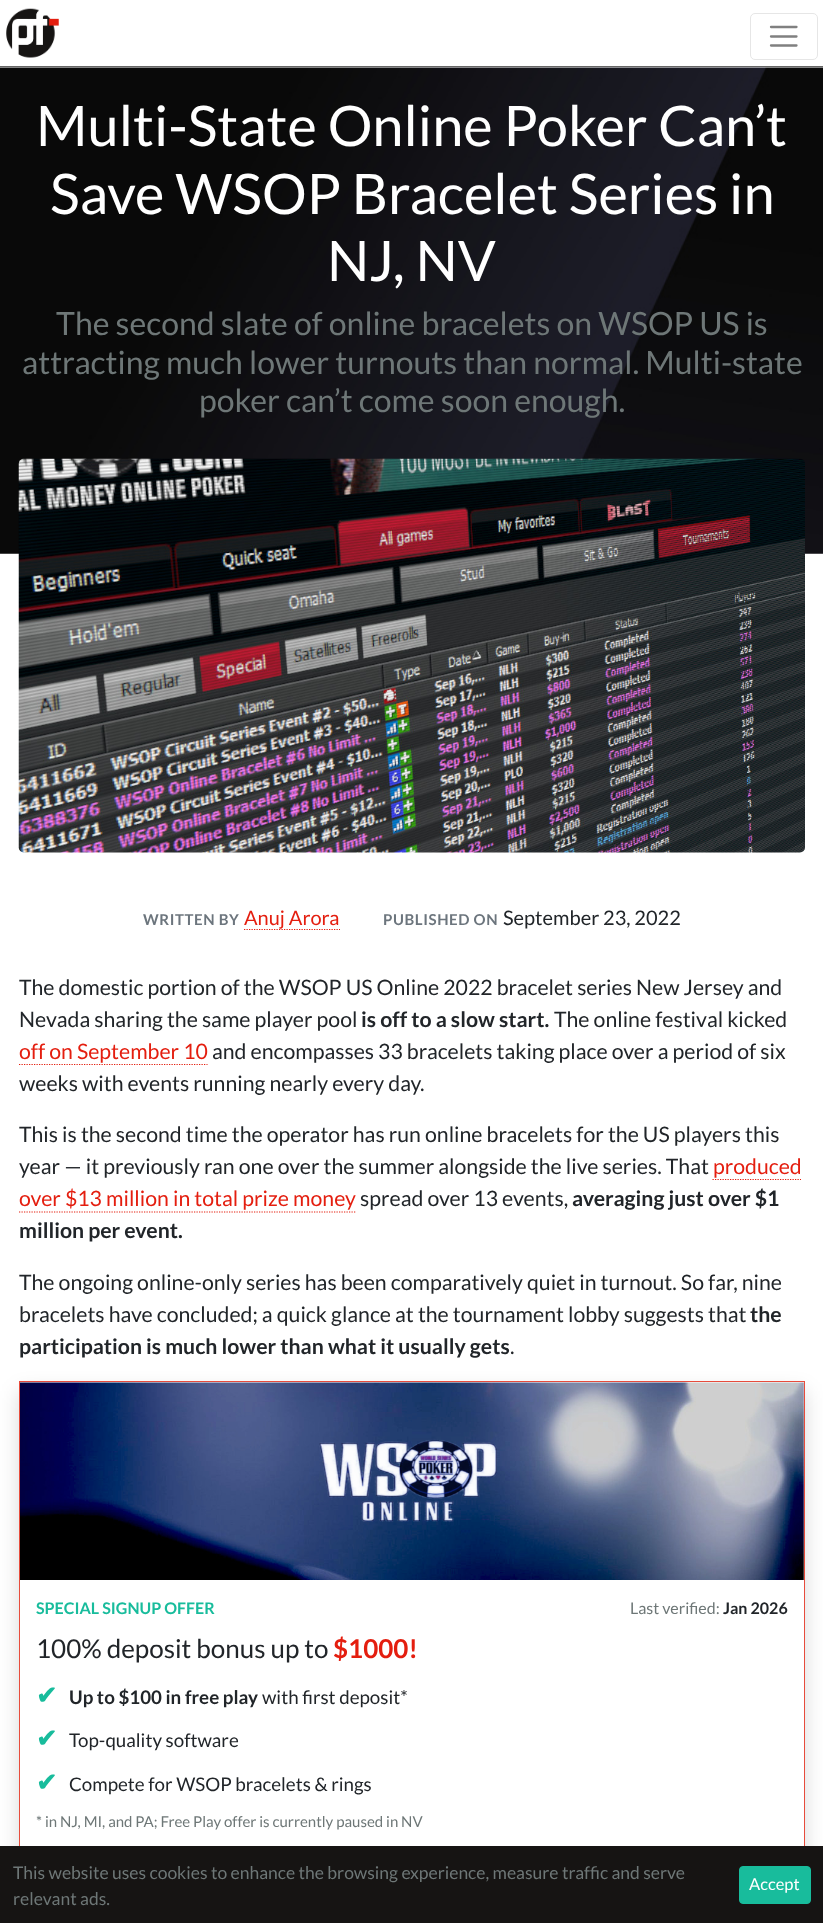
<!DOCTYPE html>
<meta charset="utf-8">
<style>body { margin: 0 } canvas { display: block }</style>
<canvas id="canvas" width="823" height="1923"></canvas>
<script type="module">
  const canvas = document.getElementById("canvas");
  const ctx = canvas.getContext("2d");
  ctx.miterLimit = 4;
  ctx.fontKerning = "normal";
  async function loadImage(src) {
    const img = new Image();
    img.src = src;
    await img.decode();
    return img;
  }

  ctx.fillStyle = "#ffffff";
  ctx.fillRect(0, 0, 823, 1923);
  ctx.drawImage(await loadImage("img1.png"), 6, 8, 53, 50);
  ctx.beginPath();
  ctx.roundRect(750.5, 13.5, 67, 46, 4.5);
  ctx.strokeStyle = "#e6e6e6";
  ctx.stroke();
  ctx.beginPath();
  ctx.moveTo(771, 27);
  ctx.lineTo(796.5, 27);
  ctx.moveTo(771, 36.5);
  ctx.lineTo(796.5, 36.5);
  ctx.moveTo(771, 45.5);
  ctx.lineTo(796.5, 45.5);
  ctx.strokeStyle = "#808080";
  ctx.lineWidth = 2.3;
  ctx.lineCap = "round";
  ctx.stroke();
  ctx.fillStyle = "#666666";
  ctx.fillRect(0, 66, 823, 1);
  ctx.drawImage(await loadImage("img2.png"), 0, 67, 823, 487);
  ctx.font = "56px Lato";
  ctx.fillStyle = "#ffffff";
  ctx.fillText("Multi-State Online Poker Can’t", 36, 146);
  ctx.fillText("Save WSOP Bracelet Series in", 50, 214);
  ctx.fillText("NJ, NV", 327, 281);
  ctx.font = "32px Lato";
  ctx.fillStyle = "#6e7777";
  ctx.fillText("The second slate of online bracelets on WSOP US is", 56, 335);
  ctx.fillText("attracting much lower turnouts than normal. Multi-state", 22, 374);
  ctx.fillText("poker can’t come soon enough.", 199, 412);
  ctx.drawImage(await loadImage("img3.png"), 18, 458, 787, 395);
  ctx.letterSpacing = "0.6px";
  ctx.font = "bold 15px Lato";
  ctx.fillStyle = "#6c757d";
  ctx.fillText("WRITTEN BY", 143, 925);
  ctx.beginPath();
  ctx.moveTo(244, 929.5);
  ctx.lineTo(340, 929.5);
  ctx.strokeStyle = "#e41e0f";
  ctx.lineWidth = 1.2;
  ctx.lineCap = "butt";
  ctx.setLineDash([1.25, 1.25]);
  ctx.stroke();
  ctx.letterSpacing = "0px";
  ctx.font = "20px Lato";
  ctx.fillStyle = "#e41e0f";
  ctx.fillText("Anuj Arora", 244, 925);
  ctx.letterSpacing = "0.6px";
  ctx.font = "bold 15px Lato";
  ctx.fillStyle = "#6c757d";
  ctx.fillText("PUBLISHED ON", 383, 925);
  ctx.letterSpacing = "0px";
  ctx.font = "20px Lato";
  ctx.fillStyle = "#212529";
  ctx.fillText("September 23, 2022", 503, 925);
  ctx.font = "21.25px Lato";
  ctx.fillText("The domestic portion of the WSOP US Online 2022 bracelet series New Jersey and", 19, 995);
  ctx.fillText("Nevada sharing the same player pool", 19, 1027);
  ctx.font = "bold 21.25px Lato";
  ctx.fillText("is off to a slow start.", 361, 1027);
  ctx.font = "21.25px Lato";
  ctx.fillText("The online festival kicked", 554, 1027);
  ctx.fillStyle = "#e41e0f";
  ctx.fillText("off on September 10", 19, 1059);
  ctx.beginPath();
  ctx.moveTo(19, 1064.5);
  ctx.lineTo(207.5, 1064.5);
  ctx.stroke();
  ctx.fillStyle = "#212529";
  ctx.fillText("and encompasses 33 bracelets taking place over a period of six", 212, 1059);
  ctx.fillText("weeks with events running nearly every day.", 19, 1091);
  ctx.fillText("This is the second time the operator has run online bracelets for the US players this", 19, 1142);
  ctx.fillText("year — it previously ran one over the summer alongside the live series. That", 19, 1174);
  ctx.fillStyle = "#e41e0f";
  ctx.fillText("produced", 713, 1174);
  ctx.beginPath();
  ctx.moveTo(712.5, 1179.5);
  ctx.lineTo(801, 1179.5);
  ctx.stroke();
  ctx.fillText("over $13 million in total prize money", 19, 1206);
  ctx.beginPath();
  ctx.moveTo(19, 1212);
  ctx.lineTo(356, 1212);
  ctx.stroke();
  ctx.fillStyle = "#212529";
  ctx.fillText("spread over 13 events,", 360, 1206);
  ctx.font = "bold 21.25px Lato";
  ctx.fillText("averaging just over $1", 572, 1206);
  ctx.fillText("million per event.", 19, 1238);
  ctx.font = "21.25px Lato";
  ctx.fillText("The ongoing online-only series has been comparatively quiet in turnout. So far, nine", 19, 1290);
  ctx.fillText("bracelets have concluded; a quick glance at the tournament lobby suggests that", 19, 1322);
  ctx.font = "bold 21.25px Lato";
  ctx.fillText("the", 750, 1322);
  ctx.fillText("participation is much lower than what it usually gets", 19, 1354);
  ctx.font = "21.25px Lato";
  ctx.fillText(".", 510, 1354);
  ctx.save();
  ctx.beginPath();
  ctx.moveTo(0, 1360);
  ctx.lineTo(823, 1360);
  ctx.lineTo(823, 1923);
  ctx.lineTo(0, 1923);
  ctx.closePath();
  ctx.moveTo(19, 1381);
  ctx.lineTo(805, 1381);
  ctx.lineTo(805, 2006);
  ctx.lineTo(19, 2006);
  ctx.closePath();
  ctx.clip("evenodd");
  ctx.fillStyle = "rgba(0, 0, 0, 0.15)";
  ctx.filter = "blur(10px)";
  ctx.beginPath();
  ctx.rect(19, 1391, 786, 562);
  ctx.fill();
  ctx.filter = "none";
  ctx.restore();
  ctx.strokeStyle = "#e74c3c";
  ctx.lineWidth = 1;
  ctx.setLineDash([]);
  ctx.strokeRect(19.5, 1381.5, 785, 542);
  ctx.drawImage(await loadImage("img4.png"), 20, 1382, 784, 198);
  ctx.drawImage(await loadImage("img5.png"), 319, 1439, 179, 83);
  ctx.font = "bold 16px Lato";
  ctx.fillStyle = "#18bc9c";
  ctx.fillText("SPECIAL SIGNUP OFFER", 36, 1614);
  ctx.font = "16px Lato";
  ctx.fillStyle = "#6e7777";
  ctx.fillText("Last verified:", 630, 1614);
  ctx.font = "bold 16px Lato";
  ctx.fillStyle = "#212529";
  ctx.fillText("Jan 2026", 723, 1614);
  ctx.font = "26px Lato";
  ctx.fillText("100% deposit bonus up to", 36, 1658);
  ctx.font = "bold 26px Lato";
  ctx.fillStyle = "#e41e0f";
  ctx.fillText("$1000!", 333, 1658);
  ctx.font = "bold 25px DejaVu Sans";
  ctx.fillStyle = "#18bc9c";
  ctx.fillText("✔", 36, 1704);
  ctx.font = "bold 18.75px Lato";
  ctx.fillStyle = "#212529";
  ctx.fillText("Up to $100 in free play", 69, 1704);
  ctx.font = "18.75px Lato";
  ctx.fillText("with first deposit*", 262, 1704);
  ctx.font = "bold 25px DejaVu Sans";
  ctx.fillStyle = "#18bc9c";
  ctx.fillText("✔", 36, 1747);
  ctx.font = "18.75px Lato";
  ctx.fillStyle = "#212529";
  ctx.fillText("Top-quality software", 69, 1747);
  ctx.font = "bold 25px DejaVu Sans";
  ctx.fillStyle = "#18bc9c";
  ctx.fillText("✔", 36, 1791);
  ctx.font = "18.75px Lato";
  ctx.fillStyle = "#212529";
  ctx.fillText("Compete for WSOP bracelets & rings", 69, 1791);
  ctx.font = "15px Lato";
  ctx.fillStyle = "#6e7777";
  ctx.fillText("* in NJ, MI, and PA; Free Play offer is currently paused in NV", 36, 1827);
  ctx.fillStyle = "#161413";
  ctx.fillRect(0, 1846, 823, 77);
  ctx.font = "17.5px Lato";
  ctx.fillStyle = "#6e7777";
  ctx.fillText("This website uses cookies to enhance the browsing experience, measure traffic and serve", 13, 1879);
  ctx.fillText("relevant ads.", 13, 1905);
  ctx.fillStyle = "#18bc9c";
  ctx.beginPath();
  ctx.roundRect(739.5, 1866.5, 71, 37, 3.5);
  ctx.fill();
  ctx.strokeStyle = "#18bc9c";
  ctx.stroke();
  ctx.font = "16.5px Lato";
  ctx.fillStyle = "#ffffff";
  ctx.fillText("Accept", 749, 1890);
</script>
